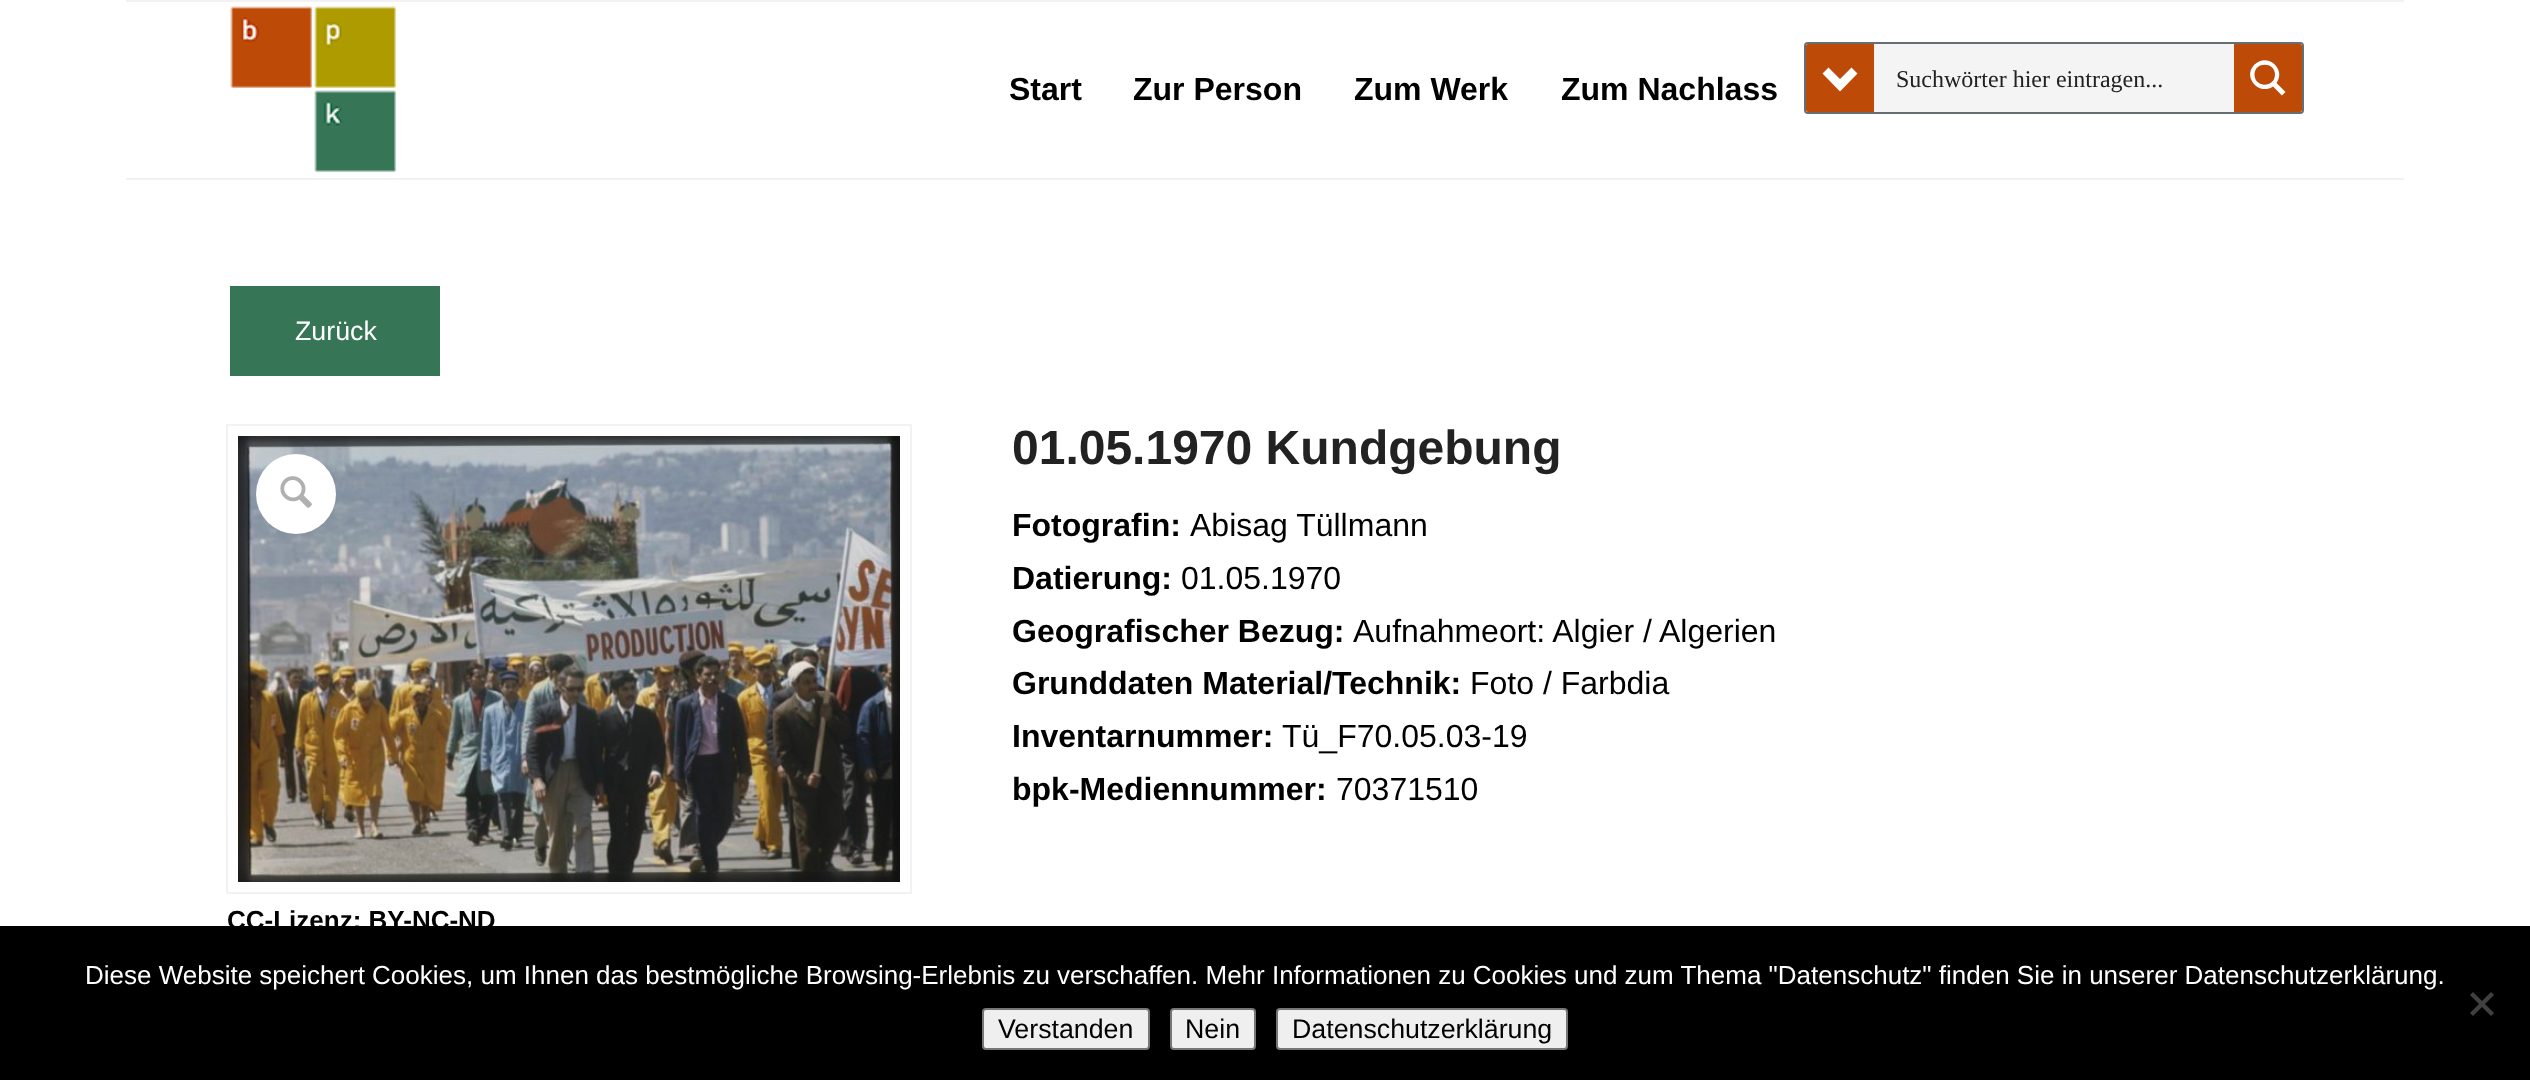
<!DOCTYPE html>
<meta charset="utf-8">
<style>body { margin: 0 } canvas { display: block }</style>
<canvas id="canvas" width="2530" height="1080"></canvas>
<script type="module">
  const canvas = document.getElementById("canvas");
  const ctx = canvas.getContext("2d");
  ctx.miterLimit = 4;
  ctx.fontKerning = "normal";
  async function loadImage(src) {
    const img = new Image();
    img.src = src;
    await img.decode();
    return img;
  }

  ctx.fillStyle = "#ffffff";
  ctx.fillRect(0, 0, 2530, 1080);
  ctx.fillStyle = "#f2f2f2";
  ctx.fillRect(126, 0, 2278, 2);
  ctx.fillRect(126, 178, 2278, 2);
  ctx.drawImage(await loadImage("img1.png"), 230, 6, 167, 167);
  ctx.font = "bold 32px Liberation Sans";
  ctx.fillStyle = "#000000";
  ctx.fillText("Start", 1009, 100);
  ctx.fillText("Zur Person", 1133, 100);
  ctx.fillText("Zum Werk", 1354, 100);
  ctx.fillText("Zum Nachlass", 1561, 100);
  ctx.fillStyle = "#d1eaff";
  ctx.beginPath();
  ctx.roundRect(1804, 42, 500, 72, 4);
  ctx.fill();
  ctx.fillStyle = "rgba(177, 177, 177, 0.38)";
  ctx.beginPath();
  ctx.roundRect(1804, 42, 500, 72, 4);
  ctx.fill();
  ctx.beginPath();
  ctx.roundRect(1805, 43, 498, 70, 3);
  ctx.strokeStyle = "rgba(0, 0, 0, 0.48)";
  ctx.lineWidth = 2;
  ctx.stroke();
  ctx.fillStyle = "#ffffff";
  ctx.beginPath();
  ctx.roundRect(1806, 44, 496, 68, 2);
  ctx.fill();
  ctx.fillStyle = "rgba(131, 134, 135, 0.09)";
  ctx.beginPath();
  ctx.roundRect(1806, 44, 496, 68, 2);
  ctx.fill();
  ctx.fillStyle = "#bd4b07";
  ctx.beginPath();
  ctx.roundRect(1806, 44, 68, 68, [2, 0, 0, 2]);
  ctx.fill();
  ctx.fillStyle = "#ffffff";
  ctx.beginPath();
  ctx.moveTo(1822.5, 73.5);
  ctx.lineTo(1828.5, 67.5);
  ctx.lineTo(1840, 79);
  ctx.lineTo(1851.5, 67.5);
  ctx.lineTo(1857.5, 73.5);
  ctx.lineTo(1840, 91.5);
  ctx.closePath();
  ctx.fill();
  ctx.font = "24px Liberation Serif";
  ctx.fillStyle = "#222222";
  ctx.fillText("Suchwörter hier eintragen...", 1896, 87);
  ctx.fillStyle = "#bd4b07";
  ctx.beginPath();
  ctx.roundRect(2234, 44, 68, 68, [0, 2, 2, 0]);
  ctx.fill();
  ctx.fillStyle = "#ffffff";
  ctx.beginPath();
  ctx.moveTo(2285.5, 92);
  ctx.lineTo(2276.5, 83);
  ctx.bezierCurveTo(2286.5, 69, 2267.5, 52, 2254.5, 64.5);
  ctx.bezierCurveTo(2242, 77, 2259, 96, 2273, 86.5);
  ctx.lineTo(2282, 95.5);
  ctx.closePath();
  ctx.moveTo(2254.5, 74.5);
  ctx.bezierCurveTo(2254.5, 61.5, 2275, 61.5, 2275, 74.5);
  ctx.bezierCurveTo(2275, 88, 2254.5, 88, 2254.5, 74.5);
  ctx.closePath();
  ctx.fill();
  ctx.fillStyle = "#367656";
  ctx.fillRect(230, 286, 210, 90);
  ctx.font = "26.75px Liberation Sans";
  ctx.fillStyle = "#ffffff";
  ctx.fillText("Zurück", 295, 340);
  ctx.font = "bold 48px Liberation Sans";
  ctx.fillStyle = "#222222";
  ctx.fillText("01.05.1970 Kundgebung", 1012, 464);
  ctx.font = "bold 32px Liberation Sans";
  ctx.fillStyle = "#000000";
  ctx.fillText("Fotografin:", 1012, 536);
  ctx.font = "32px Liberation Sans";
  ctx.fillText("Abisag Tüllmann", 1190, 536);
  ctx.font = "bold 32px Liberation Sans";
  ctx.fillText("Datierung:", 1012, 589);
  ctx.font = "32px Liberation Sans";
  ctx.fillText("01.05.1970", 1181, 589);
  ctx.font = "bold 32px Liberation Sans";
  ctx.fillText("Geografischer Bezug:", 1012, 642);
  ctx.font = "32px Liberation Sans";
  ctx.fillText("Aufnahmeort: Algier / Algerien", 1353, 642);
  ctx.font = "bold 32px Liberation Sans";
  ctx.fillText("Grunddaten Material/Technik:", 1012, 694);
  ctx.font = "32px Liberation Sans";
  ctx.fillText("Foto / Farbdia", 1470, 694);
  ctx.font = "bold 32px Liberation Sans";
  ctx.fillText("Inventarnummer:", 1012, 747);
  ctx.font = "32px Liberation Sans";
  ctx.fillText("Tü_F70.05.03-19", 1282, 747);
  ctx.font = "bold 32px Liberation Sans";
  ctx.fillText("bpk-Mediennummer:", 1012, 800);
  ctx.font = "32px Liberation Sans";
  ctx.fillText("70371510", 1336, 800);
  ctx.strokeStyle = "#f2f2f2";
  ctx.strokeRect(227, 425, 684, 468);
  ctx.drawImage(await loadImage("img3.png"), 238, 436, 662, 446);
  ctx.fillStyle = "#ffffff";
  ctx.beginPath();
  ctx.arc(296, 494, 40, 0, Math.PI * 2);
  ctx.fill();
  ctx.drawImage(await loadImage("img2.png"), 280, 476, 32, 32);
  ctx.font = "bold 26px Liberation Sans";
  ctx.fillStyle = "#000000";
  ctx.fillText("CC-Lizenz: BY-NC-ND", 227, 929);
  ctx.fillRect(0, 926, 2530, 154);
  ctx.font = "26px Liberation Sans";
  ctx.fillStyle = "#ffffff";
  ctx.fillText("Diese Website speichert Cookies, um Ihnen das bestmögliche Browsing-Erlebnis zu verschaffen. Mehr Informationen zu Cookies und zum Thema \"Datenschutz\" finden Sie in unserer Datenschutzerklärung.", 85, 984);
  ctx.fillStyle = "#404040";
  ctx.beginPath();
  ctx.moveTo(2491, 992);
  ctx.lineTo(2494, 995);
  ctx.lineTo(2473, 1016);
  ctx.lineTo(2470, 1013);
  ctx.closePath();
  ctx.fill();
  ctx.beginPath();
  ctx.moveTo(2470, 995);
  ctx.lineTo(2473, 992);
  ctx.lineTo(2494, 1013);
  ctx.lineTo(2491, 1016);
  ctx.closePath();
  ctx.fill();
  ctx.fillStyle = "#efefef";
  ctx.beginPath();
  ctx.roundRect(983, 1009, 166, 40, 3);
  ctx.fill();
  ctx.strokeStyle = "#767676";
  ctx.stroke();
  ctx.font = "26.75px Liberation Sans";
  ctx.fillStyle = "#000000";
  ctx.fillText("Verstanden", 998, 1038);
  ctx.fillStyle = "#efefef";
  ctx.beginPath();
  ctx.roundRect(1171, 1009, 84, 40, 3);
  ctx.fill();
  ctx.stroke();
  ctx.fillStyle = "#000000";
  ctx.fillText("Nein", 1185, 1038);
  ctx.fillStyle = "#efefef";
  ctx.beginPath();
  ctx.roundRect(1277, 1009, 290, 40, 3);
  ctx.fill();
  ctx.stroke();
  ctx.fillStyle = "#000000";
  ctx.fillText("Datenschutzerklärung", 1292, 1038);
</script>
